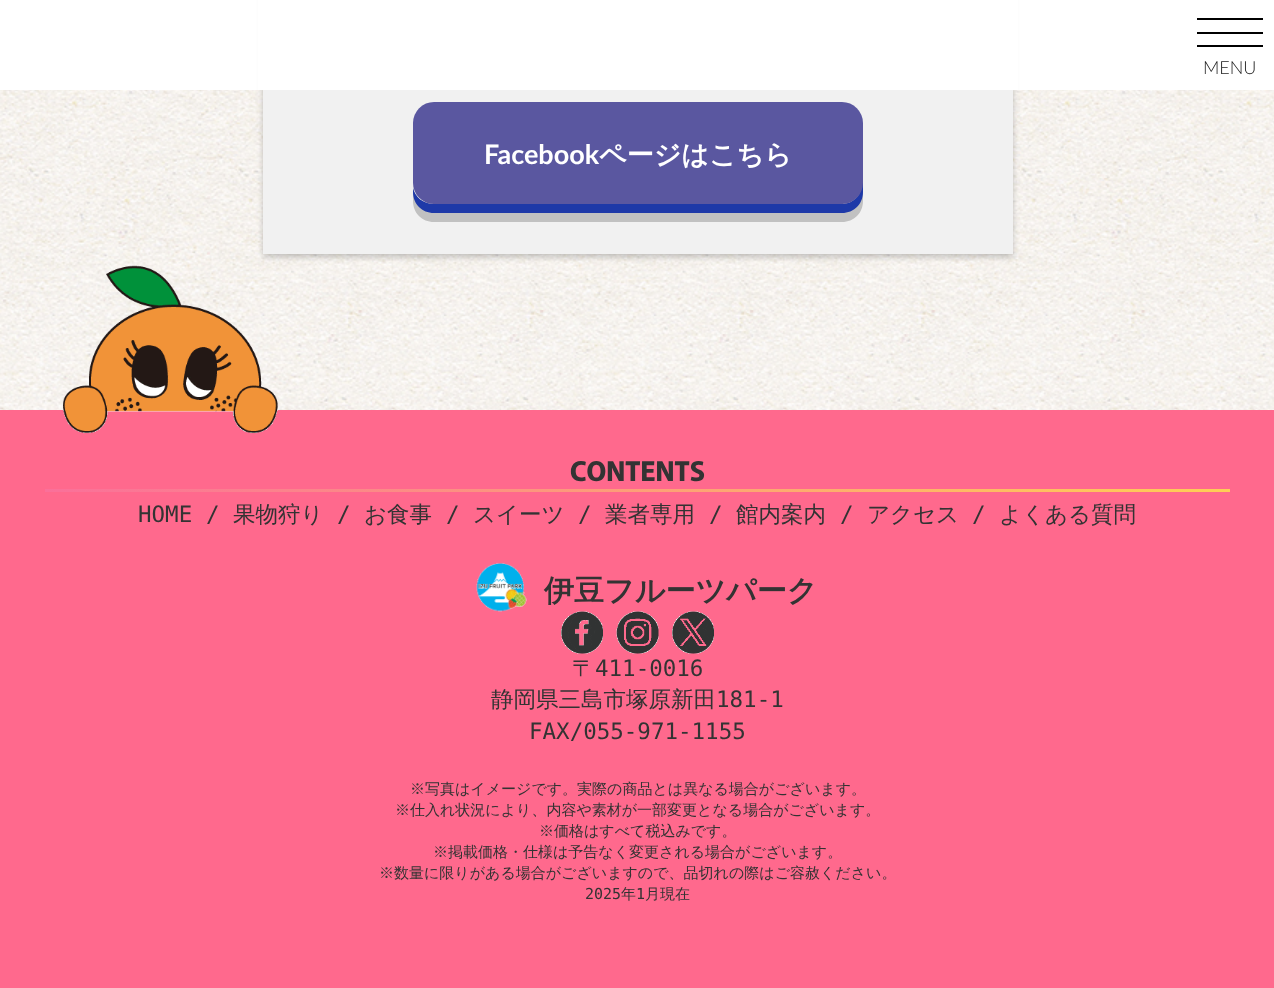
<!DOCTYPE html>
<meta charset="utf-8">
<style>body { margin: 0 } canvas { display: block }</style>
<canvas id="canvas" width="1274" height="988"></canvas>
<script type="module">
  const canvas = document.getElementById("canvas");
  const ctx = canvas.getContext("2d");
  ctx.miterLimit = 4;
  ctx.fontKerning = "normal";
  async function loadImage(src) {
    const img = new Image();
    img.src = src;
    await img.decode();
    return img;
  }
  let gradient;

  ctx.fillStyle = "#ffffff";
  ctx.fillRect(0, 0, 1274, 988);
  ctx.drawImage(await loadImage("img1.png"), 0, 90, 1274, 320);
  ctx.fillStyle = "rgba(0, 0, 0, 0.22)";
  ctx.filter = "blur(3px)";
  ctx.beginPath();
  ctx.rect(263, -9, 750, 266);
  ctx.fill();
  ctx.filter = "none";
  ctx.fillStyle = "#ffffff";
  ctx.fillRect(258, 0, 760, 90);
  ctx.fillStyle = "#000000";
  ctx.fillRect(1197, 18, 66, 2);
  ctx.fillRect(1197, 32, 66, 2);
  ctx.fillRect(1197, 45, 66, 2);
  ctx.font = "300 18px Lato";
  ctx.fillStyle = "#222222";
  ctx.fillText("MENU", 1203, 74);
  ctx.fillStyle = "#f1f1f1";
  ctx.fillRect(263, 90, 750, 164);
  ctx.fillStyle = "#c1c1c1";
  ctx.beginPath();
  ctx.moveTo(413, 188);
  ctx.lineTo(413, 201);
  ctx.bezierCurveTo(413, 213, 422, 222, 434, 222);
  ctx.lineTo(842, 222);
  ctx.bezierCurveTo(854, 222, 863, 213, 863, 201);
  ctx.lineTo(863, 141);
  ctx.lineTo(862, 136);
  ctx.lineTo(862, 183);
  ctx.bezierCurveTo(862, 195, 853, 204, 842, 204);
  ctx.lineTo(434, 204);
  ctx.bezierCurveTo(423, 204, 415, 197, 413, 188);
  ctx.closePath();
  ctx.fill();
  ctx.fillStyle = "#1e39a8";
  ctx.beginPath();
  ctx.moveTo(413, 188);
  ctx.lineTo(413, 192);
  ctx.bezierCurveTo(413, 204, 422, 213, 434, 213);
  ctx.lineTo(842, 213);
  ctx.bezierCurveTo(854, 213, 863, 204, 863, 192);
  ctx.lineTo(863, 132);
  ctx.lineTo(862, 127);
  ctx.lineTo(862, 183);
  ctx.bezierCurveTo(862, 195, 853, 204, 842, 204);
  ctx.lineTo(434, 204);
  ctx.bezierCurveTo(423, 204, 415, 197, 413, 188);
  ctx.closePath();
  ctx.fill();
  ctx.fillStyle = "#5a57a0";
  ctx.beginPath();
  ctx.roundRect(413, 102, 450, 102, 21);
  ctx.fill();
  ctx.font = "bold 27px Lato";
  ctx.fillStyle = "#ffffff";
  ctx.fillText("Facebook", 484, 164);
  ctx.font = "bold 27px WenQuanYi Zen Hei";
  ctx.fillText("ページはこちら", 599, 164);
  ctx.fillStyle = "#ff698d";
  ctx.fillRect(0, 410, 1274, 578);
  ctx.drawImage(await loadImage("img2.png"), 63, 265, 215, 169);
  ctx.font = "bold 27px Murecho";
  ctx.fillStyle = "#333333";
  ctx.fillText("CONTENTS", 570, 481);
  gradient = ctx.createLinearGradient(45, 491, 1230, 491);
  gradient.addColorStop(0, "#fa709a");
  gradient.addColorStop(1, "#ffce55");
  ctx.fillStyle = gradient;
  ctx.fillRect(45, 489, 1185, 3);
  ctx.font = "22.5px DejaVu Sans Mono";
  ctx.fillStyle = "#333333";
  ctx.fillText("HOME", 138, 522);
  ctx.fillText("/", 206, 522);
  ctx.font = "500 22.5px WenQuanYi Zen Hei";
  ctx.fillText("果物狩り", 233, 522);
  ctx.font = "22.5px DejaVu Sans Mono";
  ctx.fillText("/", 337, 522);
  ctx.font = "500 22.5px WenQuanYi Zen Hei";
  ctx.fillText("お食事", 364, 522);
  ctx.font = "22.5px DejaVu Sans Mono";
  ctx.fillText("/", 446, 522);
  ctx.font = "500 22.5px WenQuanYi Zen Hei";
  ctx.fillText("スイーツ", 473, 522);
  ctx.font = "22.5px DejaVu Sans Mono";
  ctx.fillText("/", 578, 522);
  ctx.font = "500 22.5px WenQuanYi Zen Hei";
  ctx.fillText("業者専用", 605, 522);
  ctx.font = "22.5px DejaVu Sans Mono";
  ctx.fillText("/", 709, 522);
  ctx.font = "500 22.5px WenQuanYi Zen Hei";
  ctx.fillText("館内案内", 736, 522);
  ctx.font = "22.5px DejaVu Sans Mono";
  ctx.fillText("/", 840, 522);
  ctx.font = "500 22.5px WenQuanYi Zen Hei";
  ctx.fillText("アクセス", 867, 522);
  ctx.font = "22.5px DejaVu Sans Mono";
  ctx.fillText("/", 972, 522);
  ctx.font = "500 22.5px WenQuanYi Zen Hei";
  ctx.fillText("よくある質問", 999, 522);
  ctx.drawImage(await loadImage("img3.png"), 476, 563, 51, 49);
  ctx.font = "bold 30px WenQuanYi Zen Hei";
  ctx.fillText("伊豆フルーツパーク", 544, 601);
  ctx.drawImage(await loadImage("img4.png"), 561, 611, 42, 43);
  ctx.drawImage(await loadImage("img5.png"), 616, 611, 43, 43);
  ctx.drawImage(await loadImage("img6.png"), 672, 611, 42, 43);
  ctx.font = "500 22.5px WenQuanYi Zen Hei";
  ctx.fillText("〒", 572, 676);
  ctx.font = "22.5px DejaVu Sans Mono";
  ctx.fillText("411-0016", 595, 676);
  ctx.font = "500 22.5px WenQuanYi Zen Hei";
  ctx.fillText("静岡県三島市塚原新田", 491, 707);
  ctx.font = "22.5px DejaVu Sans Mono";
  ctx.fillText("181-1", 716, 707);
  ctx.fillText("FAX/055-971-1155", 529, 739);
  ctx.font = "500 15px WenQuanYi Zen Hei";
  ctx.fillText("※写真はイメージです。実際の商品とは異なる場合がございます。", 410, 794);
  ctx.fillText("※仕入れ状況により、内容や素材が一部変更となる場合がございます。", 395, 815);
  ctx.fillText("※価格はすべて税込みです。", 539, 836);
  ctx.fillText("※掲載価格・仕様は予告なく変更される場合がございます。", 433, 857);
  ctx.fillText("※数量に限りがある場合がございますので、品切れの際はご容赦ください。", 379, 878);
  ctx.font = "15px DejaVu Sans Mono";
  ctx.fillText("2025", 585, 899);
  ctx.font = "500 15px WenQuanYi Zen Hei";
  ctx.fillText("年", 621, 899);
  ctx.font = "15px DejaVu Sans Mono";
  ctx.fillText("1", 636, 899);
  ctx.font = "500 15px WenQuanYi Zen Hei";
  ctx.fillText("月現在", 645, 899);
</script>
